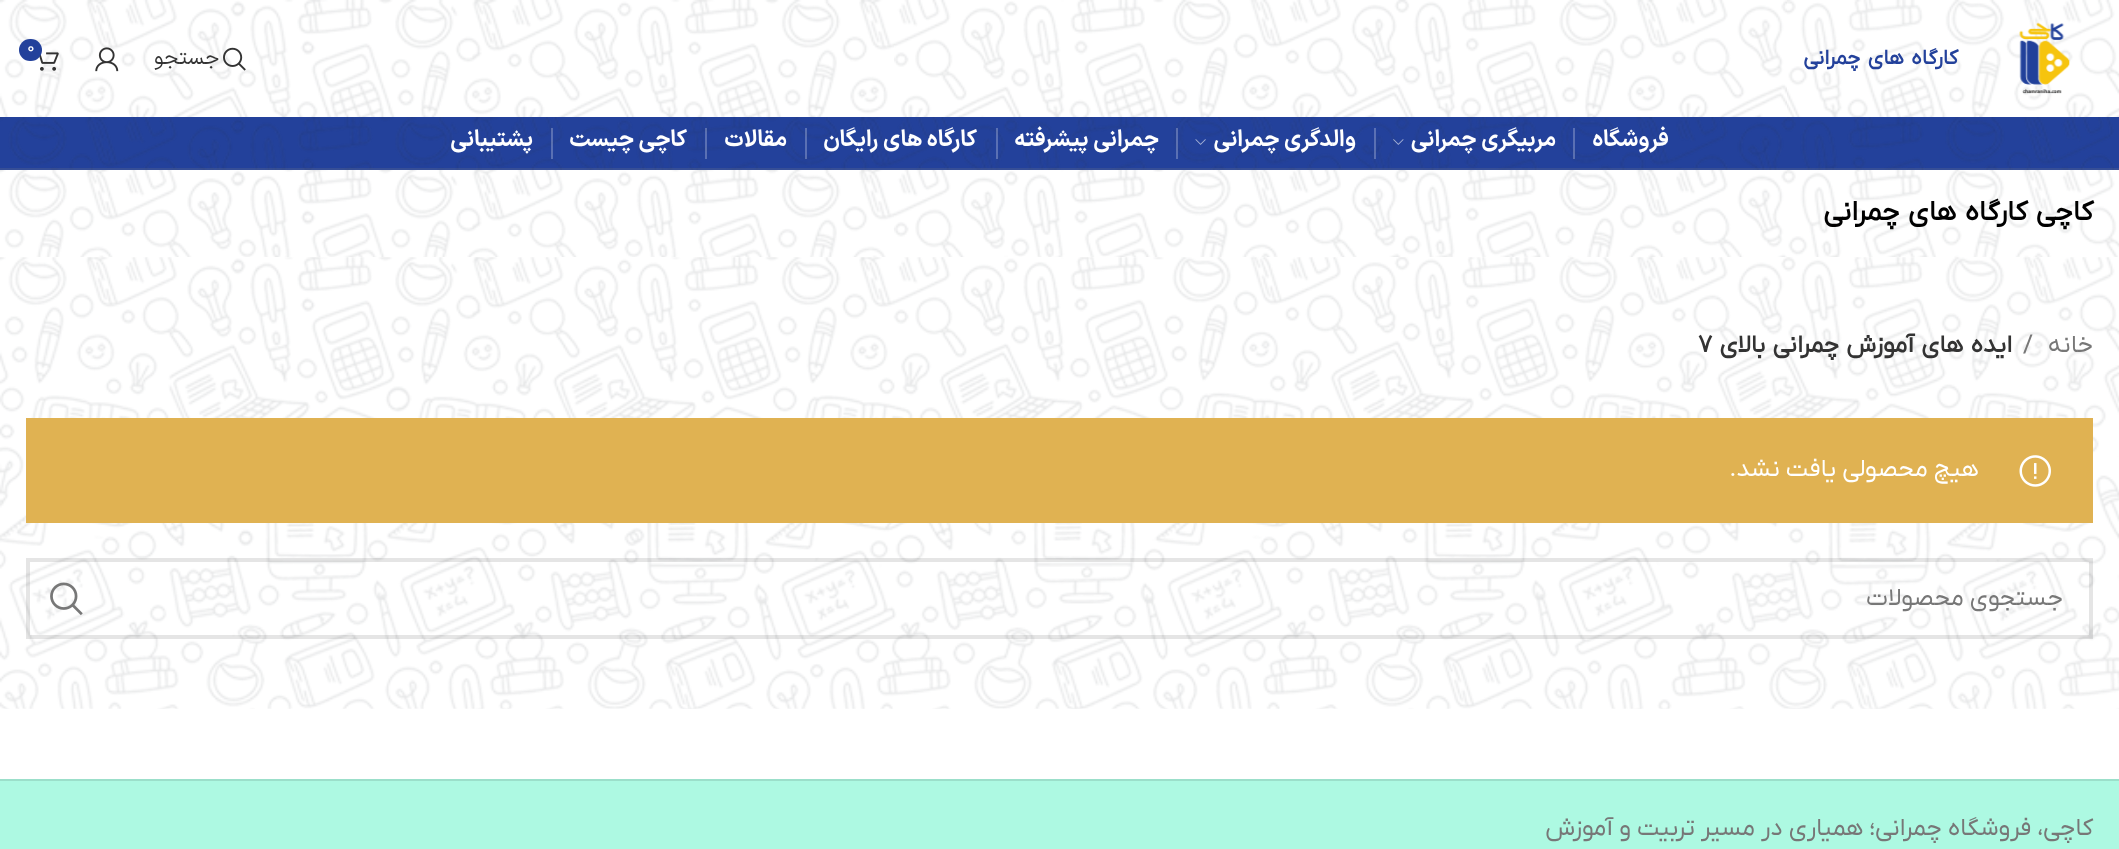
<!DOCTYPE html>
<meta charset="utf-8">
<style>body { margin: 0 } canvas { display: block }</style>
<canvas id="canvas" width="2119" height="849"></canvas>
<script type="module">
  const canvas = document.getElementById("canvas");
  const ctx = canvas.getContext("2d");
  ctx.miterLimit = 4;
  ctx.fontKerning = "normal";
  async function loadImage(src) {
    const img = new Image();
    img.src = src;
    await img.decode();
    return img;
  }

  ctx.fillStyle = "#ffffff";
  ctx.fillRect(0, 0, 2119, 849);
  ctx.drawImage(await loadImage("img1.png"), 0, 0, 2119, 117);
  ctx.drawImage(await loadImage("img2.png"), 2019, 22, 51, 72);
  ctx.wordSpacing = "2px";
  ctx.direction = "rtl";
  ctx.font = "bold 21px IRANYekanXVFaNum";
  ctx.fillStyle = "#23419b";
  ctx.fillText("کارگاه های چمرانی", 1958, 64);
  ctx.drawImage(await loadImage("img3.png"), 223, 47, 23, 24);
  ctx.wordSpacing = "0px";
  ctx.font = "21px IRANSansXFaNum";
  ctx.fillStyle = "#333333";
  ctx.fillText("جستجو", 219, 64);
  ctx.drawImage(await loadImage("img4.png"), 95, 47, 24, 25);
  ctx.drawImage(await loadImage("img5.png"), 39, 52, 20, 19);
  ctx.fillStyle = "#23419b";
  ctx.beginPath();
  ctx.roundRect(19, 39, 23, 22, 11);
  ctx.fill();
  ctx.direction = "ltr";
  ctx.font = "16px IRANYekanXVFaNum";
  ctx.fillStyle = "#ffffff";
  ctx.fillText("0", 27, 52);
  ctx.fillStyle = "#23419b";
  ctx.fillRect(0, 117, 2119, 53);
  ctx.drawImage(await loadImage("img6.png"), 0, 117, 2114, 53);
  ctx.fillStyle = "rgba(129, 129, 129, 0.2)";
  ctx.fillRect(0, 168, 2119, 2);
  ctx.direction = "rtl";
  ctx.font = "bold 22.75px IRANSansXFaNum";
  ctx.fillStyle = "#ffffff";
  ctx.fillText("فروشگاه", 1669, 146);
  ctx.fillStyle = "rgba(255, 255, 255, 0.25)";
  ctx.fillRect(1573, 128, 2, 31);
  ctx.fillStyle = "#ffffff";
  ctx.fillText("مربیگری چمرانی", 1556, 146);
  ctx.drawImage(await loadImage("img7.png"), 1393, 139, 11, 6);
  ctx.fillStyle = "rgba(255, 255, 255, 0.25)";
  ctx.fillRect(1374, 128, 2, 31);
  ctx.fillStyle = "#ffffff";
  ctx.fillText("والدگری چمرانی", 1356, 146);
  ctx.drawImage(await loadImage("img8.png"), 1195, 139, 11, 6);
  ctx.fillStyle = "rgba(255, 255, 255, 0.25)";
  ctx.fillRect(1176, 128, 2, 31);
  ctx.fillStyle = "#ffffff";
  ctx.fillText("چمرانی پیشرفته", 1159, 146);
  ctx.fillStyle = "rgba(255, 255, 255, 0.25)";
  ctx.fillRect(996, 128, 2, 31);
  ctx.fillStyle = "#ffffff";
  ctx.fillText("کارگاه های رایگان", 977, 146);
  ctx.fillStyle = "rgba(255, 255, 255, 0.25)";
  ctx.fillRect(805, 128, 2, 31);
  ctx.fillStyle = "#ffffff";
  ctx.fillText("مقالات", 787, 146);
  ctx.fillStyle = "rgba(255, 255, 255, 0.25)";
  ctx.fillRect(705, 128, 2, 31);
  ctx.fillStyle = "#ffffff";
  ctx.fillText("کاچی چیست", 687, 146);
  ctx.fillStyle = "rgba(255, 255, 255, 0.25)";
  ctx.fillRect(551, 128, 2, 31);
  ctx.fillStyle = "#ffffff";
  ctx.fillText("پشتیبانی", 533, 146);
  ctx.drawImage(await loadImage("img9.png"), 0, 170, 2119, 87);
  ctx.wordSpacing = "1.5px";
  ctx.font = "bold 28px IRANYekanXVFaNum";
  ctx.fillStyle = "#000000";
  ctx.fillText("کاچی کارگاه های چمرانی", 2093, 220);
  ctx.drawImage(await loadImage("img10.png"), 0, 257, 2119, 452);
  ctx.wordSpacing = "0px";
  ctx.font = "24.5px IRANYekanXVFaNum";
  ctx.fillStyle = "#777777";
  ctx.fillText("خانه", 2093, 352);
  ctx.direction = "ltr";
  ctx.fillText("/", 2023, 352);
  ctx.wordSpacing = "1px";
  ctx.direction = "rtl";
  ctx.font = "bold 24.5px IRANYekanXVFaNum";
  ctx.fillStyle = "#333333";
  ctx.fillText("ایده های آموزش چمرانی بالای", 2012, 352);
  ctx.wordSpacing = "0px";
  ctx.direction = "ltr";
  ctx.fillText("7", 1698, 352);
  ctx.fillStyle = "#e0b252";
  ctx.fillRect(26, 418, 2067, 105);
  ctx.drawImage(await loadImage("img11.png"), 2019, 455, 32, 32);
  ctx.direction = "rtl";
  ctx.font = "24.5px IRANYekanXVFaNum";
  ctx.fillStyle = "#ffffff";
  ctx.fillText("هیچ محصولی یافت نشد.", 1979, 476);
  ctx.strokeStyle = "rgba(0, 0, 0, 0.1)";
  ctx.lineWidth = 4;
  ctx.strokeRect(28, 560, 2063, 77);
  ctx.fillStyle = "#777777";
  ctx.fillText("جستجوی محصولات", 2063, 605);
  ctx.drawImage(await loadImage("img12.png"), 50, 582, 33, 34);
  ctx.fillStyle = "#adf9e2";
  ctx.fillRect(0, 781, 2119, 68);
  ctx.fillStyle = "#9bdfca";
  ctx.fillRect(0, 779, 2119, 2);
  ctx.fillStyle = "#777777";
  ctx.fillText("کاچی، فروشگاه چمرانی؛ همیاری در مسیر تربیت و آموزش", 2093, 835);
</script>
